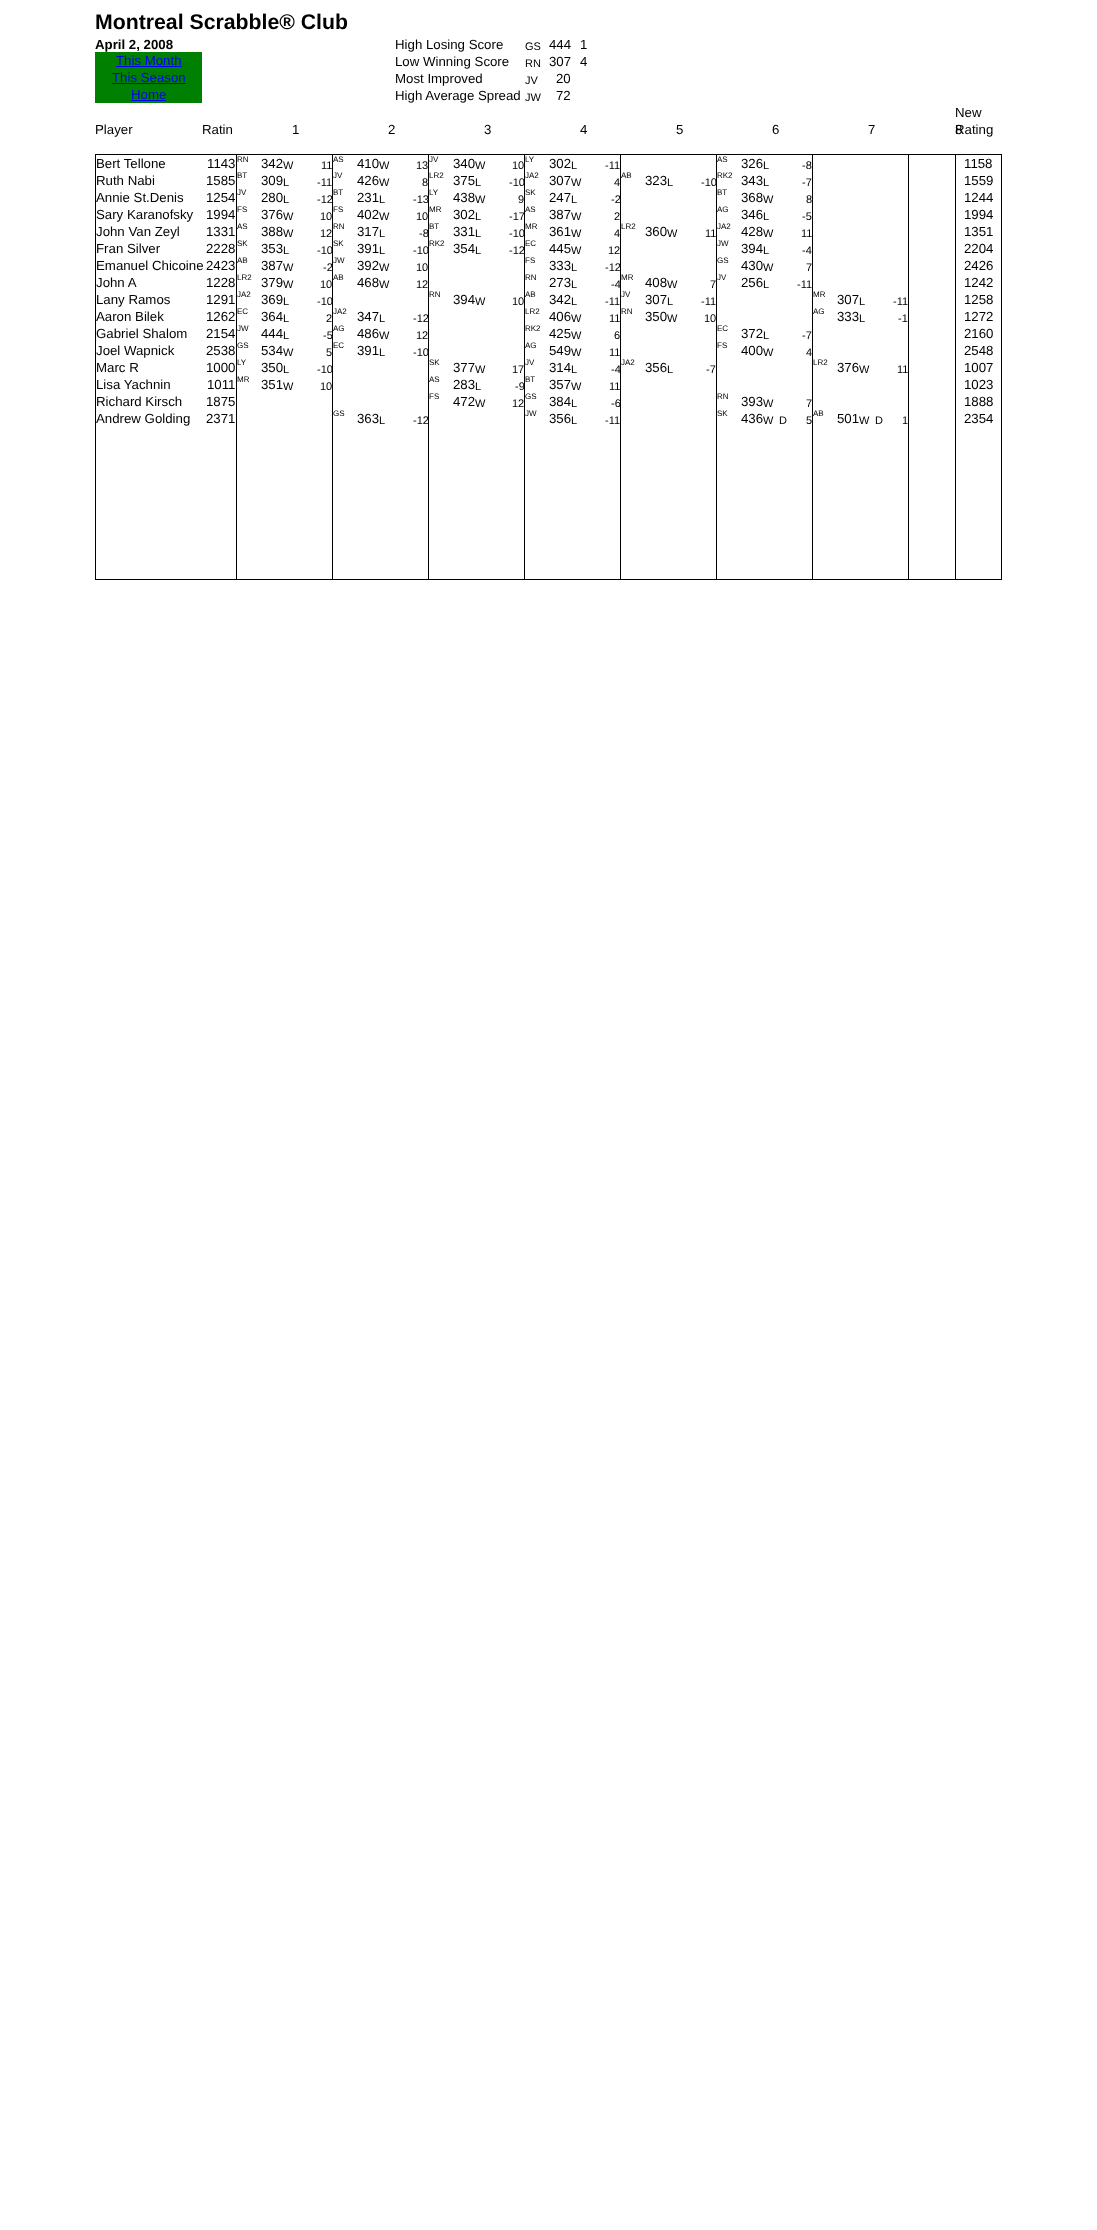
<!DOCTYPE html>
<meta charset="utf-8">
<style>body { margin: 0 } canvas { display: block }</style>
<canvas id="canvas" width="1097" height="2230"></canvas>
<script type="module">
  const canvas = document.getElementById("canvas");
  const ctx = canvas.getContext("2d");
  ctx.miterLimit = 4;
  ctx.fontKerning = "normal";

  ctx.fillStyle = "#ffffff";
  ctx.fillRect(0, 0, 1097, 2230);
  ctx.font = "bold 21.25px Liberation Sans";
  ctx.fillStyle = "#000000";
  ctx.fillText("Montreal Scrabble® Club", 95, 29);
  ctx.font = "bold 13.25px Liberation Sans";
  ctx.fillText("April 2, 2008", 95, 49);
  ctx.font = "13.25px Liberation Sans";
  ctx.fillText("High Losing Score", 395, 49);
  ctx.font = "11px Liberation Sans";
  ctx.fillText("GS", 525, 50);
  ctx.font = "13.25px Liberation Sans";
  ctx.fillText("444", 549, 49);
  ctx.fillText("1", 580, 49);
  ctx.fillStyle = "#008000";
  ctx.fillRect(95, 52, 107, 51);
  ctx.fillStyle = "#0000ee";
  ctx.fillText("This Month", 116, 65);
  ctx.fillStyle = "#0000ff";
  ctx.fillRect(116, 66, 66, 1);
  ctx.fillStyle = "#000000";
  ctx.fillText("Low Winning Score", 395, 66);
  ctx.font = "11px Liberation Sans";
  ctx.fillText("RN", 525, 67);
  ctx.font = "13.25px Liberation Sans";
  ctx.fillText("307", 549, 66);
  ctx.fillText("4", 580, 66);
  ctx.fillStyle = "#0000ee";
  ctx.fillText("This Season", 112, 82);
  ctx.fillStyle = "#0000ff";
  ctx.fillRect(112, 83, 74, 1);
  ctx.fillStyle = "#000000";
  ctx.fillText("Most Improved", 395, 83);
  ctx.font = "11px Liberation Sans";
  ctx.fillText("JV", 525, 84);
  ctx.font = "13.25px Liberation Sans";
  ctx.fillText("20", 556, 83);
  ctx.fillStyle = "#0000ee";
  ctx.fillText("Home", 131, 99);
  ctx.fillStyle = "#0000ff";
  ctx.fillRect(131, 100, 35, 1);
  ctx.fillStyle = "#000000";
  ctx.fillText("High Average Spread", 395, 100);
  ctx.font = "11px Liberation Sans";
  ctx.fillText("JW", 525, 101);
  ctx.font = "13.25px Liberation Sans";
  ctx.fillText("72", 556, 100);
  ctx.fillText("New", 955, 117);
  ctx.fillText("Player", 95, 134);
  ctx.fillText("Ratin", 202, 134);
  ctx.fillText("1", 292, 134);
  ctx.fillText("2", 388, 134);
  ctx.fillText("3", 484, 134);
  ctx.fillText("4", 580, 134);
  ctx.fillText("5", 676, 134);
  ctx.fillText("6", 772, 134);
  ctx.fillText("7", 868, 134);
  ctx.fillText("8", 955, 134);
  ctx.fillText("Rating", 955, 134);
  ctx.fillRect(1001, 154, 1, 426);
  ctx.fillRect(955, 579, 47, 1);
  ctx.fillRect(955, 154, 1, 426);
  ctx.fillRect(908, 579, 48, 1);
  ctx.fillRect(908, 154, 1, 426);
  ctx.fillRect(812, 579, 97, 1);
  ctx.fillRect(812, 154, 1, 426);
  ctx.fillRect(716, 579, 97, 1);
  ctx.fillRect(716, 154, 1, 426);
  ctx.fillRect(620, 579, 97, 1);
  ctx.fillRect(620, 154, 1, 426);
  ctx.fillRect(524, 579, 97, 1);
  ctx.fillRect(524, 154, 1, 426);
  ctx.fillRect(428, 579, 97, 1);
  ctx.fillRect(428, 154, 1, 426);
  ctx.fillRect(332, 579, 97, 1);
  ctx.fillRect(332, 154, 1, 426);
  ctx.fillRect(236, 579, 97, 1);
  ctx.fillRect(236, 154, 1, 426);
  ctx.fillRect(95, 579, 142, 1);
  ctx.fillRect(95, 154, 1, 426);
  ctx.fillRect(95, 154, 907, 1);
  ctx.fillText("Bert Tellone", 96, 168);
  ctx.fillText("1143", 207, 168);
  ctx.font = "8px Liberation Sans";
  ctx.fillText("RN", 237, 162);
  ctx.font = "13.25px Liberation Sans";
  ctx.fillText("342", 261, 168);
  ctx.font = "11px Liberation Sans";
  ctx.fillText("W", 283, 169);
  ctx.fillText("11", 321, 169);
  ctx.font = "8px Liberation Sans";
  ctx.fillText("AS", 333, 162);
  ctx.font = "13.25px Liberation Sans";
  ctx.fillText("410", 357, 168);
  ctx.font = "11px Liberation Sans";
  ctx.fillText("W", 379, 169);
  ctx.fillText("13", 416, 169);
  ctx.font = "8px Liberation Sans";
  ctx.fillText("JV", 429, 162);
  ctx.font = "13.25px Liberation Sans";
  ctx.fillText("340", 453, 168);
  ctx.font = "11px Liberation Sans";
  ctx.fillText("W", 475, 169);
  ctx.fillText("10", 512, 169);
  ctx.font = "8px Liberation Sans";
  ctx.fillText("LY", 525, 162);
  ctx.font = "13.25px Liberation Sans";
  ctx.fillText("302", 549, 168);
  ctx.font = "11px Liberation Sans";
  ctx.fillText("L", 571, 169);
  ctx.fillText("-11", 605, 169);
  ctx.font = "8px Liberation Sans";
  ctx.fillText("AS", 717, 162);
  ctx.font = "13.25px Liberation Sans";
  ctx.fillText("326", 741, 168);
  ctx.font = "11px Liberation Sans";
  ctx.fillText("L", 763, 169);
  ctx.fillText("-8", 802, 169);
  ctx.font = "13.25px Liberation Sans";
  ctx.fillText("1158", 964, 168);
  ctx.fillText("Ruth Nabi", 96, 185);
  ctx.fillText("1585", 206, 185);
  ctx.font = "8px Liberation Sans";
  ctx.fillText("BT", 237, 178);
  ctx.font = "13.25px Liberation Sans";
  ctx.fillText("309", 261, 185);
  ctx.font = "11px Liberation Sans";
  ctx.fillText("L", 283, 186);
  ctx.fillText("-11", 317, 186);
  ctx.font = "8px Liberation Sans";
  ctx.fillText("JV", 333, 178);
  ctx.font = "13.25px Liberation Sans";
  ctx.fillText("426", 357, 185);
  ctx.font = "11px Liberation Sans";
  ctx.fillText("W", 379, 186);
  ctx.fillText("8", 422, 186);
  ctx.font = "8px Liberation Sans";
  ctx.fillText("LR2", 429, 178);
  ctx.font = "13.25px Liberation Sans";
  ctx.fillText("375", 453, 185);
  ctx.font = "11px Liberation Sans";
  ctx.fillText("L", 475, 186);
  ctx.fillText("-10", 509, 186);
  ctx.font = "8px Liberation Sans";
  ctx.fillText("JA2", 525, 178);
  ctx.font = "13.25px Liberation Sans";
  ctx.fillText("307", 549, 185);
  ctx.font = "11px Liberation Sans";
  ctx.fillText("W", 571, 186);
  ctx.fillText("4", 614, 186);
  ctx.font = "8px Liberation Sans";
  ctx.fillText("AB", 621, 178);
  ctx.font = "13.25px Liberation Sans";
  ctx.fillText("323", 645, 185);
  ctx.font = "11px Liberation Sans";
  ctx.fillText("L", 667, 186);
  ctx.fillText("-10", 701, 186);
  ctx.font = "8px Liberation Sans";
  ctx.fillText("RK2", 717, 178);
  ctx.font = "13.25px Liberation Sans";
  ctx.fillText("343", 741, 185);
  ctx.font = "11px Liberation Sans";
  ctx.fillText("L", 763, 186);
  ctx.fillText("-7", 802, 186);
  ctx.font = "13.25px Liberation Sans";
  ctx.fillText("1559", 964, 185);
  ctx.fillText("Annie St.Denis", 96, 202);
  ctx.fillText("1254", 206, 202);
  ctx.font = "8px Liberation Sans";
  ctx.fillText("JV", 237, 195);
  ctx.font = "13.25px Liberation Sans";
  ctx.fillText("280", 261, 202);
  ctx.font = "11px Liberation Sans";
  ctx.fillText("L", 283, 203);
  ctx.fillText("-12", 317, 203);
  ctx.font = "8px Liberation Sans";
  ctx.fillText("BT", 333, 195);
  ctx.font = "13.25px Liberation Sans";
  ctx.fillText("231", 357, 202);
  ctx.font = "11px Liberation Sans";
  ctx.fillText("L", 379, 203);
  ctx.fillText("-13", 413, 203);
  ctx.font = "8px Liberation Sans";
  ctx.fillText("LY", 429, 195);
  ctx.font = "13.25px Liberation Sans";
  ctx.fillText("438", 453, 202);
  ctx.font = "11px Liberation Sans";
  ctx.fillText("W", 475, 203);
  ctx.fillText("9", 518, 203);
  ctx.font = "8px Liberation Sans";
  ctx.fillText("SK", 525, 195);
  ctx.font = "13.25px Liberation Sans";
  ctx.fillText("247", 549, 202);
  ctx.font = "11px Liberation Sans";
  ctx.fillText("L", 571, 203);
  ctx.fillText("-2", 611, 203);
  ctx.font = "8px Liberation Sans";
  ctx.fillText("BT", 717, 195);
  ctx.font = "13.25px Liberation Sans";
  ctx.fillText("368", 741, 202);
  ctx.font = "11px Liberation Sans";
  ctx.fillText("W", 763, 203);
  ctx.fillText("8", 806, 203);
  ctx.font = "13.25px Liberation Sans";
  ctx.fillText("1244", 964, 202);
  ctx.fillText("Sary Karanofsky", 96, 219);
  ctx.fillText("1994", 206, 219);
  ctx.font = "8px Liberation Sans";
  ctx.fillText("FS", 237, 212);
  ctx.font = "13.25px Liberation Sans";
  ctx.fillText("376", 261, 219);
  ctx.font = "11px Liberation Sans";
  ctx.fillText("W", 283, 220);
  ctx.fillText("10", 320, 220);
  ctx.font = "8px Liberation Sans";
  ctx.fillText("FS", 333, 212);
  ctx.font = "13.25px Liberation Sans";
  ctx.fillText("402", 357, 219);
  ctx.font = "11px Liberation Sans";
  ctx.fillText("W", 379, 220);
  ctx.fillText("10", 416, 220);
  ctx.font = "8px Liberation Sans";
  ctx.fillText("MR", 429, 212);
  ctx.font = "13.25px Liberation Sans";
  ctx.fillText("302", 453, 219);
  ctx.font = "11px Liberation Sans";
  ctx.fillText("L", 475, 220);
  ctx.fillText("-17", 509, 220);
  ctx.font = "8px Liberation Sans";
  ctx.fillText("AS", 525, 212);
  ctx.font = "13.25px Liberation Sans";
  ctx.fillText("387", 549, 219);
  ctx.font = "11px Liberation Sans";
  ctx.fillText("W", 571, 220);
  ctx.fillText("2", 614, 220);
  ctx.font = "8px Liberation Sans";
  ctx.fillText("AG", 717, 212);
  ctx.font = "13.25px Liberation Sans";
  ctx.fillText("346", 741, 219);
  ctx.font = "11px Liberation Sans";
  ctx.fillText("L", 763, 220);
  ctx.fillText("-5", 802, 220);
  ctx.font = "13.25px Liberation Sans";
  ctx.fillText("1994", 964, 219);
  ctx.fillText("John Van Zeyl", 96, 236);
  ctx.fillText("1331", 206, 236);
  ctx.font = "8px Liberation Sans";
  ctx.fillText("AS", 237, 229);
  ctx.font = "13.25px Liberation Sans";
  ctx.fillText("388", 261, 236);
  ctx.font = "11px Liberation Sans";
  ctx.fillText("W", 283, 237);
  ctx.fillText("12", 320, 237);
  ctx.font = "8px Liberation Sans";
  ctx.fillText("RN", 333, 229);
  ctx.font = "13.25px Liberation Sans";
  ctx.fillText("317", 357, 236);
  ctx.font = "11px Liberation Sans";
  ctx.fillText("L", 379, 237);
  ctx.fillText("-8", 419, 237);
  ctx.font = "8px Liberation Sans";
  ctx.fillText("BT", 429, 229);
  ctx.font = "13.25px Liberation Sans";
  ctx.fillText("331", 453, 236);
  ctx.font = "11px Liberation Sans";
  ctx.fillText("L", 475, 237);
  ctx.fillText("-10", 509, 237);
  ctx.font = "8px Liberation Sans";
  ctx.fillText("MR", 525, 229);
  ctx.font = "13.25px Liberation Sans";
  ctx.fillText("361", 549, 236);
  ctx.font = "11px Liberation Sans";
  ctx.fillText("W", 571, 237);
  ctx.fillText("4", 614, 237);
  ctx.font = "8px Liberation Sans";
  ctx.fillText("LR2", 621, 229);
  ctx.font = "13.25px Liberation Sans";
  ctx.fillText("360", 645, 236);
  ctx.font = "11px Liberation Sans";
  ctx.fillText("W", 667, 237);
  ctx.fillText("11", 705, 237);
  ctx.font = "8px Liberation Sans";
  ctx.fillText("JA2", 717, 229);
  ctx.font = "13.25px Liberation Sans";
  ctx.fillText("428", 741, 236);
  ctx.font = "11px Liberation Sans";
  ctx.fillText("W", 763, 237);
  ctx.fillText("11", 801, 237);
  ctx.font = "13.25px Liberation Sans";
  ctx.fillText("1351", 964, 236);
  ctx.fillText("Fran Silver", 96, 253);
  ctx.fillText("2228", 206, 253);
  ctx.font = "8px Liberation Sans";
  ctx.fillText("SK", 237, 246);
  ctx.font = "13.25px Liberation Sans";
  ctx.fillText("353", 261, 253);
  ctx.font = "11px Liberation Sans";
  ctx.fillText("L", 283, 254);
  ctx.fillText("-10", 317, 254);
  ctx.font = "8px Liberation Sans";
  ctx.fillText("SK", 333, 246);
  ctx.font = "13.25px Liberation Sans";
  ctx.fillText("391", 357, 253);
  ctx.font = "11px Liberation Sans";
  ctx.fillText("L", 379, 254);
  ctx.fillText("-10", 413, 254);
  ctx.font = "8px Liberation Sans";
  ctx.fillText("RK2", 429, 246);
  ctx.font = "13.25px Liberation Sans";
  ctx.fillText("354", 453, 253);
  ctx.font = "11px Liberation Sans";
  ctx.fillText("L", 475, 254);
  ctx.fillText("-12", 509, 254);
  ctx.font = "8px Liberation Sans";
  ctx.fillText("EC", 525, 246);
  ctx.font = "13.25px Liberation Sans";
  ctx.fillText("445", 549, 253);
  ctx.font = "11px Liberation Sans";
  ctx.fillText("W", 571, 254);
  ctx.fillText("12", 608, 254);
  ctx.font = "8px Liberation Sans";
  ctx.fillText("JW", 717, 246);
  ctx.font = "13.25px Liberation Sans";
  ctx.fillText("394", 741, 253);
  ctx.font = "11px Liberation Sans";
  ctx.fillText("L", 763, 254);
  ctx.fillText("-4", 802, 254);
  ctx.font = "13.25px Liberation Sans";
  ctx.fillText("2204", 964, 253);
  ctx.fillText("Emanuel Chicoine", 96, 270);
  ctx.fillText("2423", 206, 270);
  ctx.font = "8px Liberation Sans";
  ctx.fillText("AB", 237, 263);
  ctx.font = "13.25px Liberation Sans";
  ctx.fillText("387", 261, 270);
  ctx.font = "11px Liberation Sans";
  ctx.fillText("W", 283, 271);
  ctx.fillText("-2", 323, 271);
  ctx.font = "8px Liberation Sans";
  ctx.fillText("JW", 333, 263);
  ctx.font = "13.25px Liberation Sans";
  ctx.fillText("392", 357, 270);
  ctx.font = "11px Liberation Sans";
  ctx.fillText("W", 379, 271);
  ctx.fillText("10", 416, 271);
  ctx.font = "8px Liberation Sans";
  ctx.fillText("FS", 525, 263);
  ctx.font = "13.25px Liberation Sans";
  ctx.fillText("333", 549, 270);
  ctx.font = "11px Liberation Sans";
  ctx.fillText("L", 571, 271);
  ctx.fillText("-12", 605, 271);
  ctx.font = "8px Liberation Sans";
  ctx.fillText("GS", 717, 263);
  ctx.font = "13.25px Liberation Sans";
  ctx.fillText("430", 741, 270);
  ctx.font = "11px Liberation Sans";
  ctx.fillText("W", 763, 271);
  ctx.fillText("7", 806, 271);
  ctx.font = "13.25px Liberation Sans";
  ctx.fillText("2426", 964, 270);
  ctx.fillText("John A", 96, 287);
  ctx.fillText("1228", 206, 287);
  ctx.font = "8px Liberation Sans";
  ctx.fillText("LR2", 237, 280);
  ctx.font = "13.25px Liberation Sans";
  ctx.fillText("379", 261, 287);
  ctx.font = "11px Liberation Sans";
  ctx.fillText("W", 283, 288);
  ctx.fillText("10", 320, 288);
  ctx.font = "8px Liberation Sans";
  ctx.fillText("AB", 333, 280);
  ctx.font = "13.25px Liberation Sans";
  ctx.fillText("468", 357, 287);
  ctx.font = "11px Liberation Sans";
  ctx.fillText("W", 379, 288);
  ctx.fillText("12", 416, 288);
  ctx.font = "8px Liberation Sans";
  ctx.fillText("RN", 525, 280);
  ctx.font = "13.25px Liberation Sans";
  ctx.fillText("273", 549, 287);
  ctx.font = "11px Liberation Sans";
  ctx.fillText("L", 571, 288);
  ctx.fillText("-4", 611, 288);
  ctx.font = "8px Liberation Sans";
  ctx.fillText("MR", 621, 280);
  ctx.font = "13.25px Liberation Sans";
  ctx.fillText("408", 645, 287);
  ctx.font = "11px Liberation Sans";
  ctx.fillText("W", 667, 288);
  ctx.fillText("7", 710, 288);
  ctx.font = "8px Liberation Sans";
  ctx.fillText("JV", 717, 280);
  ctx.font = "13.25px Liberation Sans";
  ctx.fillText("256", 741, 287);
  ctx.font = "11px Liberation Sans";
  ctx.fillText("L", 763, 288);
  ctx.fillText("-11", 797, 288);
  ctx.font = "13.25px Liberation Sans";
  ctx.fillText("1242", 964, 287);
  ctx.fillText("Lany Ramos", 96, 304);
  ctx.fillText("1291", 206, 304);
  ctx.font = "8px Liberation Sans";
  ctx.fillText("JA2", 237, 297);
  ctx.font = "13.25px Liberation Sans";
  ctx.fillText("369", 261, 304);
  ctx.font = "11px Liberation Sans";
  ctx.fillText("L", 283, 305);
  ctx.fillText("-10", 317, 305);
  ctx.font = "8px Liberation Sans";
  ctx.fillText("RN", 429, 297);
  ctx.font = "13.25px Liberation Sans";
  ctx.fillText("394", 453, 304);
  ctx.font = "11px Liberation Sans";
  ctx.fillText("W", 475, 305);
  ctx.fillText("10", 512, 305);
  ctx.font = "8px Liberation Sans";
  ctx.fillText("AB", 525, 297);
  ctx.font = "13.25px Liberation Sans";
  ctx.fillText("342", 549, 304);
  ctx.font = "11px Liberation Sans";
  ctx.fillText("L", 571, 305);
  ctx.fillText("-11", 605, 305);
  ctx.font = "8px Liberation Sans";
  ctx.fillText("JV", 621, 297);
  ctx.font = "13.25px Liberation Sans";
  ctx.fillText("307", 645, 304);
  ctx.font = "11px Liberation Sans";
  ctx.fillText("L", 667, 305);
  ctx.fillText("-11", 701, 305);
  ctx.font = "8px Liberation Sans";
  ctx.fillText("MR", 813, 297);
  ctx.font = "13.25px Liberation Sans";
  ctx.fillText("307", 837, 304);
  ctx.font = "11px Liberation Sans";
  ctx.fillText("L", 859, 305);
  ctx.fillText("-11", 893, 305);
  ctx.font = "13.25px Liberation Sans";
  ctx.fillText("1258", 964, 304);
  ctx.fillText("Aaron Bilek", 96, 321);
  ctx.fillText("1262", 206, 321);
  ctx.font = "8px Liberation Sans";
  ctx.fillText("EC", 237, 314);
  ctx.font = "13.25px Liberation Sans";
  ctx.fillText("364", 261, 321);
  ctx.font = "11px Liberation Sans";
  ctx.fillText("L", 283, 322);
  ctx.fillText("2", 326, 322);
  ctx.font = "8px Liberation Sans";
  ctx.fillText("JA2", 333, 314);
  ctx.font = "13.25px Liberation Sans";
  ctx.fillText("347", 357, 321);
  ctx.font = "11px Liberation Sans";
  ctx.fillText("L", 379, 322);
  ctx.fillText("-12", 413, 322);
  ctx.font = "8px Liberation Sans";
  ctx.fillText("LR2", 525, 314);
  ctx.font = "13.25px Liberation Sans";
  ctx.fillText("406", 549, 321);
  ctx.font = "11px Liberation Sans";
  ctx.fillText("W", 571, 322);
  ctx.fillText("11", 609, 322);
  ctx.font = "8px Liberation Sans";
  ctx.fillText("RN", 621, 314);
  ctx.font = "13.25px Liberation Sans";
  ctx.fillText("350", 645, 321);
  ctx.font = "11px Liberation Sans";
  ctx.fillText("W", 667, 322);
  ctx.fillText("10", 704, 322);
  ctx.font = "8px Liberation Sans";
  ctx.fillText("AG", 813, 314);
  ctx.font = "13.25px Liberation Sans";
  ctx.fillText("333", 837, 321);
  ctx.font = "11px Liberation Sans";
  ctx.fillText("L", 859, 322);
  ctx.fillText("-1", 898, 322);
  ctx.font = "13.25px Liberation Sans";
  ctx.fillText("1272", 964, 321);
  ctx.fillText("Gabriel Shalom", 96, 338);
  ctx.fillText("2154", 206, 338);
  ctx.font = "8px Liberation Sans";
  ctx.fillText("JW", 237, 331);
  ctx.font = "13.25px Liberation Sans";
  ctx.fillText("444", 261, 338);
  ctx.font = "11px Liberation Sans";
  ctx.fillText("L", 283, 339);
  ctx.fillText("-5", 323, 339);
  ctx.font = "8px Liberation Sans";
  ctx.fillText("AG", 333, 331);
  ctx.font = "13.25px Liberation Sans";
  ctx.fillText("486", 357, 338);
  ctx.font = "11px Liberation Sans";
  ctx.fillText("W", 379, 339);
  ctx.fillText("12", 416, 339);
  ctx.font = "8px Liberation Sans";
  ctx.fillText("RK2", 525, 331);
  ctx.font = "13.25px Liberation Sans";
  ctx.fillText("425", 549, 338);
  ctx.font = "11px Liberation Sans";
  ctx.fillText("W", 571, 339);
  ctx.fillText("6", 614, 339);
  ctx.font = "8px Liberation Sans";
  ctx.fillText("EC", 717, 331);
  ctx.font = "13.25px Liberation Sans";
  ctx.fillText("372", 741, 338);
  ctx.font = "11px Liberation Sans";
  ctx.fillText("L", 763, 339);
  ctx.fillText("-7", 802, 339);
  ctx.font = "13.25px Liberation Sans";
  ctx.fillText("2160", 964, 338);
  ctx.fillText("Joel Wapnick", 96, 355);
  ctx.fillText("2538", 206, 355);
  ctx.font = "8px Liberation Sans";
  ctx.fillText("GS", 237, 348);
  ctx.font = "13.25px Liberation Sans";
  ctx.fillText("534", 261, 355);
  ctx.font = "11px Liberation Sans";
  ctx.fillText("W", 283, 356);
  ctx.fillText("5", 326, 356);
  ctx.font = "8px Liberation Sans";
  ctx.fillText("EC", 333, 348);
  ctx.font = "13.25px Liberation Sans";
  ctx.fillText("391", 357, 355);
  ctx.font = "11px Liberation Sans";
  ctx.fillText("L", 379, 356);
  ctx.fillText("-10", 413, 356);
  ctx.font = "8px Liberation Sans";
  ctx.fillText("AG", 525, 348);
  ctx.font = "13.25px Liberation Sans";
  ctx.fillText("549", 549, 355);
  ctx.font = "11px Liberation Sans";
  ctx.fillText("W", 571, 356);
  ctx.fillText("11", 609, 356);
  ctx.font = "8px Liberation Sans";
  ctx.fillText("FS", 717, 348);
  ctx.font = "13.25px Liberation Sans";
  ctx.fillText("400", 741, 355);
  ctx.font = "11px Liberation Sans";
  ctx.fillText("W", 763, 356);
  ctx.fillText("4", 806, 356);
  ctx.font = "13.25px Liberation Sans";
  ctx.fillText("2548", 964, 355);
  ctx.fillText("Marc R", 96, 372);
  ctx.fillText("1000", 206, 372);
  ctx.font = "8px Liberation Sans";
  ctx.fillText("LY", 237, 365);
  ctx.font = "13.25px Liberation Sans";
  ctx.fillText("350", 261, 372);
  ctx.font = "11px Liberation Sans";
  ctx.fillText("L", 283, 373);
  ctx.fillText("-10", 317, 373);
  ctx.font = "8px Liberation Sans";
  ctx.fillText("SK", 429, 365);
  ctx.font = "13.25px Liberation Sans";
  ctx.fillText("377", 453, 372);
  ctx.font = "11px Liberation Sans";
  ctx.fillText("W", 475, 373);
  ctx.fillText("17", 512, 373);
  ctx.font = "8px Liberation Sans";
  ctx.fillText("JV", 525, 365);
  ctx.font = "13.25px Liberation Sans";
  ctx.fillText("314", 549, 372);
  ctx.font = "11px Liberation Sans";
  ctx.fillText("L", 571, 373);
  ctx.fillText("-4", 611, 373);
  ctx.font = "8px Liberation Sans";
  ctx.fillText("JA2", 621, 365);
  ctx.font = "13.25px Liberation Sans";
  ctx.fillText("356", 645, 372);
  ctx.font = "11px Liberation Sans";
  ctx.fillText("L", 667, 373);
  ctx.fillText("-7", 706, 373);
  ctx.font = "8px Liberation Sans";
  ctx.fillText("LR2", 813, 365);
  ctx.font = "13.25px Liberation Sans";
  ctx.fillText("376", 837, 372);
  ctx.font = "11px Liberation Sans";
  ctx.fillText("W", 859, 373);
  ctx.fillText("11", 897, 373);
  ctx.font = "13.25px Liberation Sans";
  ctx.fillText("1007", 964, 372);
  ctx.fillText("Lisa Yachnin", 96, 389);
  ctx.fillText("1011", 207, 389);
  ctx.font = "8px Liberation Sans";
  ctx.fillText("MR", 237, 382);
  ctx.font = "13.25px Liberation Sans";
  ctx.fillText("351", 261, 389);
  ctx.font = "11px Liberation Sans";
  ctx.fillText("W", 283, 390);
  ctx.fillText("10", 320, 390);
  ctx.font = "8px Liberation Sans";
  ctx.fillText("AS", 429, 382);
  ctx.font = "13.25px Liberation Sans";
  ctx.fillText("283", 453, 389);
  ctx.font = "11px Liberation Sans";
  ctx.fillText("L", 475, 390);
  ctx.fillText("-9", 515, 390);
  ctx.font = "8px Liberation Sans";
  ctx.fillText("BT", 525, 382);
  ctx.font = "13.25px Liberation Sans";
  ctx.fillText("357", 549, 389);
  ctx.font = "11px Liberation Sans";
  ctx.fillText("W", 571, 390);
  ctx.fillText("11", 609, 390);
  ctx.font = "13.25px Liberation Sans";
  ctx.fillText("1023", 964, 389);
  ctx.fillText("Richard Kirsch", 96, 406);
  ctx.fillText("1875", 206, 406);
  ctx.font = "8px Liberation Sans";
  ctx.fillText("FS", 429, 399);
  ctx.font = "13.25px Liberation Sans";
  ctx.fillText("472", 453, 406);
  ctx.font = "11px Liberation Sans";
  ctx.fillText("W", 475, 407);
  ctx.fillText("12", 512, 407);
  ctx.font = "8px Liberation Sans";
  ctx.fillText("GS", 525, 399);
  ctx.font = "13.25px Liberation Sans";
  ctx.fillText("384", 549, 406);
  ctx.font = "11px Liberation Sans";
  ctx.fillText("L", 571, 407);
  ctx.fillText("-6", 611, 407);
  ctx.font = "8px Liberation Sans";
  ctx.fillText("RN", 717, 399);
  ctx.font = "13.25px Liberation Sans";
  ctx.fillText("393", 741, 406);
  ctx.font = "11px Liberation Sans";
  ctx.fillText("W", 763, 407);
  ctx.fillText("7", 806, 407);
  ctx.font = "13.25px Liberation Sans";
  ctx.fillText("1888", 964, 406);
  ctx.fillText("Andrew Golding", 96, 423);
  ctx.fillText("2371", 206, 423);
  ctx.font = "8px Liberation Sans";
  ctx.fillText("GS", 333, 416);
  ctx.font = "13.25px Liberation Sans";
  ctx.fillText("363", 357, 423);
  ctx.font = "11px Liberation Sans";
  ctx.fillText("L", 379, 424);
  ctx.fillText("-12", 413, 424);
  ctx.font = "8px Liberation Sans";
  ctx.fillText("JW", 525, 416);
  ctx.font = "13.25px Liberation Sans";
  ctx.fillText("356", 549, 423);
  ctx.font = "11px Liberation Sans";
  ctx.fillText("L", 571, 424);
  ctx.fillText("-11", 605, 424);
  ctx.font = "8px Liberation Sans";
  ctx.fillText("SK", 717, 416);
  ctx.font = "13.25px Liberation Sans";
  ctx.fillText("436", 741, 423);
  ctx.font = "11px Liberation Sans";
  ctx.fillText("W", 763, 424);
  ctx.fillText("D", 779, 424);
  ctx.fillText("5", 806, 424);
  ctx.font = "8px Liberation Sans";
  ctx.fillText("AB", 813, 416);
  ctx.font = "13.25px Liberation Sans";
  ctx.fillText("501", 837, 423);
  ctx.font = "11px Liberation Sans";
  ctx.fillText("W", 859, 424);
  ctx.fillText("D", 875, 424);
  ctx.fillText("1", 902, 424);
  ctx.font = "13.25px Liberation Sans";
  ctx.fillText("2354", 964, 423);
</script>
